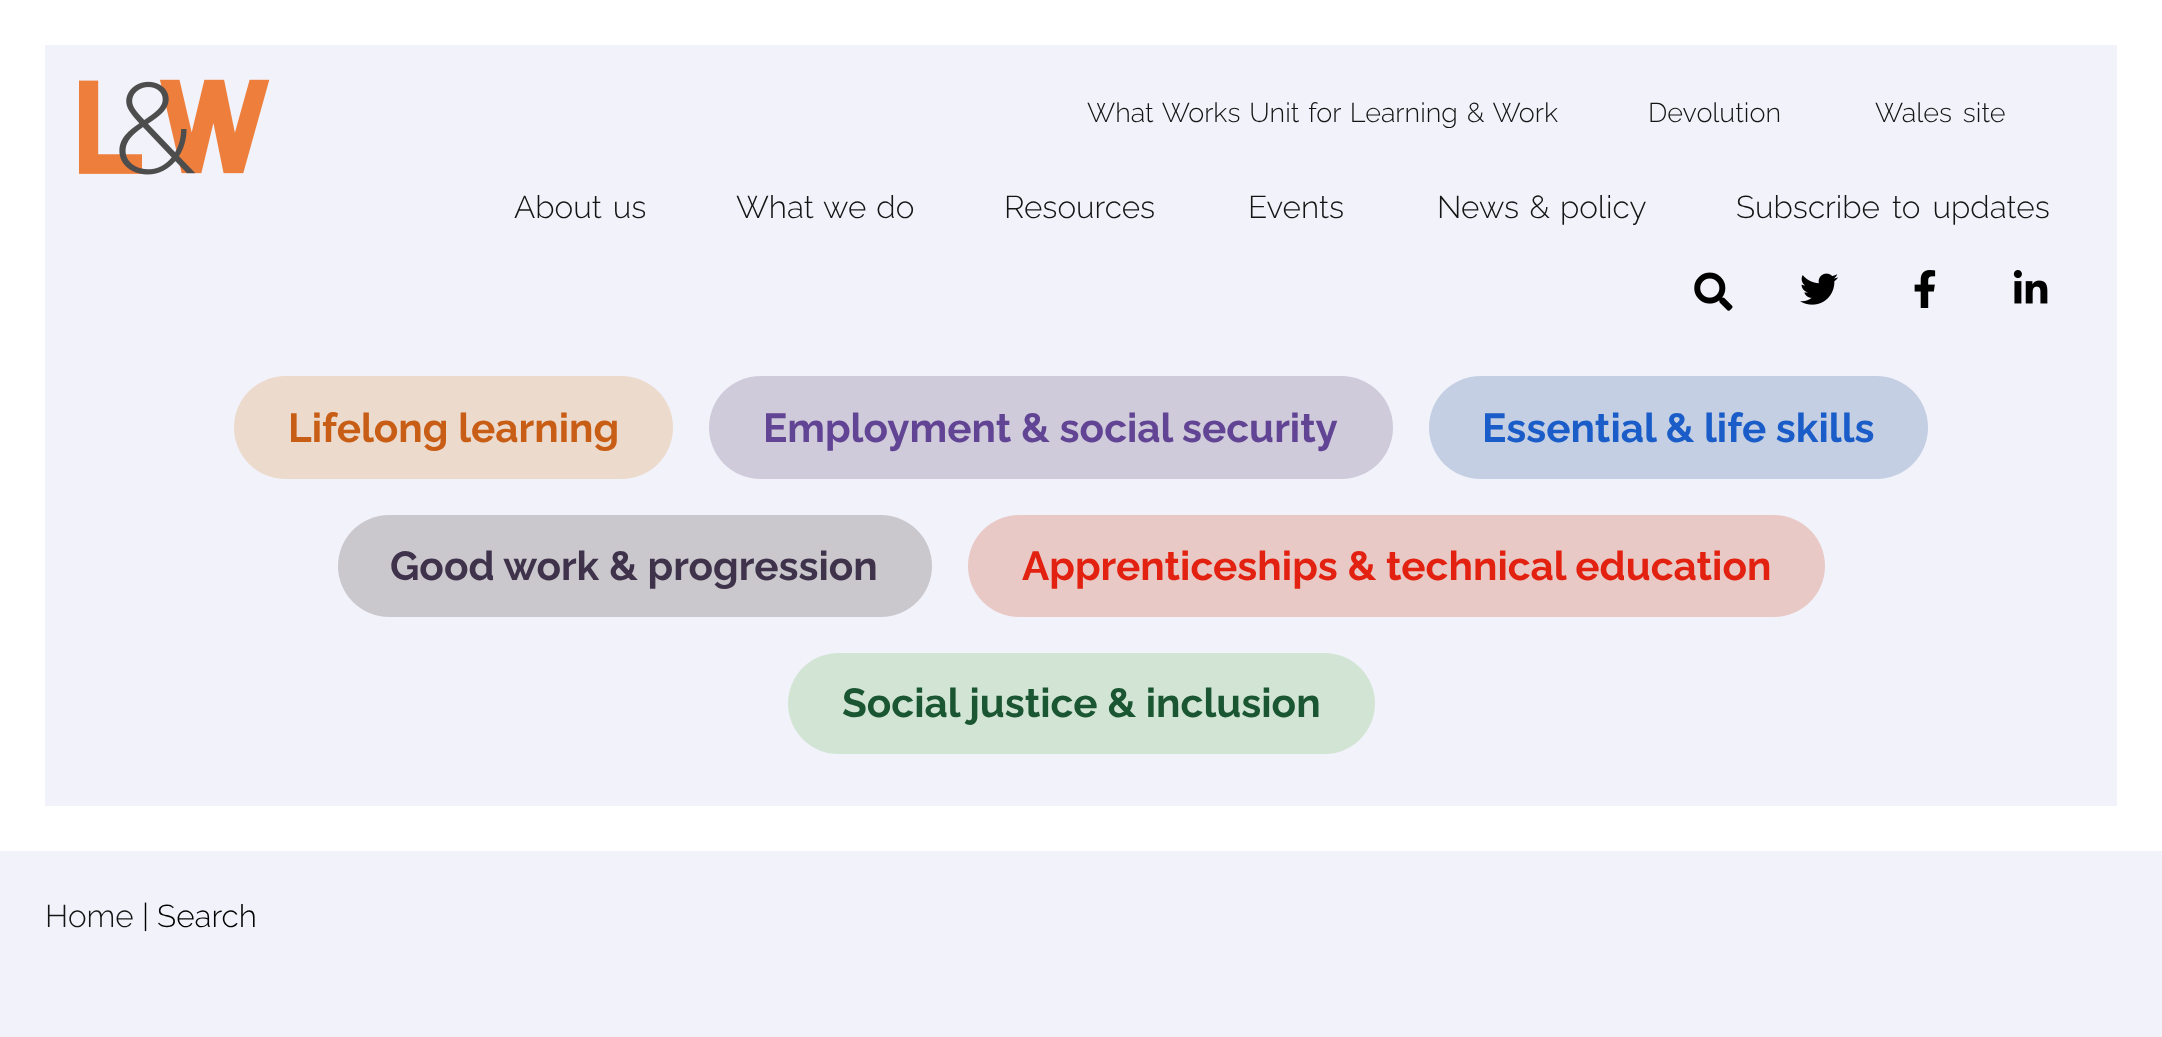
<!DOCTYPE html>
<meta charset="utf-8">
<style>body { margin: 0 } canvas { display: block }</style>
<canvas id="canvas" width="2162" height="1037"></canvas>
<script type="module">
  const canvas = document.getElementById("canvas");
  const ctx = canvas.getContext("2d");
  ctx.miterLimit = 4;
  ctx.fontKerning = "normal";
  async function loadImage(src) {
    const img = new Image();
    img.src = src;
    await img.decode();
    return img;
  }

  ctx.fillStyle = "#ffffff";
  ctx.fillRect(0, 0, 2162, 1037);
  ctx.fillStyle = "#f2f2fa";
  ctx.fillRect(45, 45, 2072, 761);
  ctx.drawImage(await loadImage("img1.png"), 79, 79, 191, 96);
  ctx.wordSpacing = "2px";
  ctx.font = "300 27px Raleway";
  ctx.fillStyle = "#141414";
  ctx.fillText("What Works Unit for Learning & Work", 1087, 122);
  ctx.wordSpacing = "0px";
  ctx.fillText("Devolution", 1648, 122);
  ctx.wordSpacing = "4px";
  ctx.fillText("Wales site", 1875, 122);
  ctx.wordSpacing = "3px";
  ctx.font = "300 31.5px Raleway";
  ctx.fillText("About us", 514, 218);
  ctx.wordSpacing = "2px";
  ctx.fillText("What we do", 736, 218);
  ctx.wordSpacing = "0px";
  ctx.fillText("Resources", 1004, 218);
  ctx.fillText("Events", 1248, 218);
  ctx.wordSpacing = "2px";
  ctx.fillText("News & policy", 1437, 218);
  ctx.wordSpacing = "4px";
  ctx.fillText("Subscribe to updates", 1736, 218);
  ctx.drawImage(await loadImage("img2.png"), 1694, 272, 39, 39);
  ctx.drawImage(await loadImage("img3.png"), 1800, 273, 38, 32);
  ctx.drawImage(await loadImage("img4.png"), 1914, 270, 22, 38);
  ctx.drawImage(await loadImage("img5.png"), 2013, 270, 35, 34);
  ctx.fillStyle = "#ecdacd";
  ctx.beginPath();
  ctx.roundRect(234, 376, 439, 103, 51.5);
  ctx.fill();
  ctx.wordSpacing = "0px";
  ctx.font = "bold 40.5px Raleway";
  ctx.fillStyle = "#c85d15";
  ctx.fillText("Lifelong learning", 288, 442);
  ctx.fillStyle = "#d0cbda";
  ctx.beginPath();
  ctx.roundRect(709, 376, 684, 103, 51.5);
  ctx.fill();
  ctx.fillStyle = "#624494";
  ctx.fillText("Employment & social security", 763, 442);
  ctx.fillStyle = "#c4cfe3";
  ctx.beginPath();
  ctx.roundRect(1429, 376, 499, 103, 51.5);
  ctx.fill();
  ctx.fillStyle = "#1b5dc8";
  ctx.fillText("Essential & life skills", 1482, 442);
  ctx.fillStyle = "#cac8cd";
  ctx.beginPath();
  ctx.roundRect(338, 515, 594, 102, 51);
  ctx.fill();
  ctx.fillStyle = "#3f334c";
  ctx.fillText("Good work & progression", 390, 580);
  ctx.fillStyle = "#e8c9c6";
  ctx.beginPath();
  ctx.roundRect(968, 515, 857, 102, 51);
  ctx.fill();
  ctx.fillStyle = "#e32110";
  ctx.fillText("Apprenticeships & technical education", 1022, 580);
  ctx.fillStyle = "#d2e5d4";
  ctx.beginPath();
  ctx.roundRect(788, 653, 587, 101, 50.5);
  ctx.fill();
  ctx.fillStyle = "#1b5633";
  ctx.fillText("Social justice & inclusion", 842, 717);
  ctx.fillStyle = "#f2f2fa";
  ctx.fillRect(0, 851, 2162, 186);
  ctx.font = "300 31.5px Raleway";
  ctx.fillStyle = "#141414";
  ctx.fillText("Home", 45, 927);
  ctx.fillStyle = "#000000";
  ctx.fillText("| Search", 142, 927);
</script>
